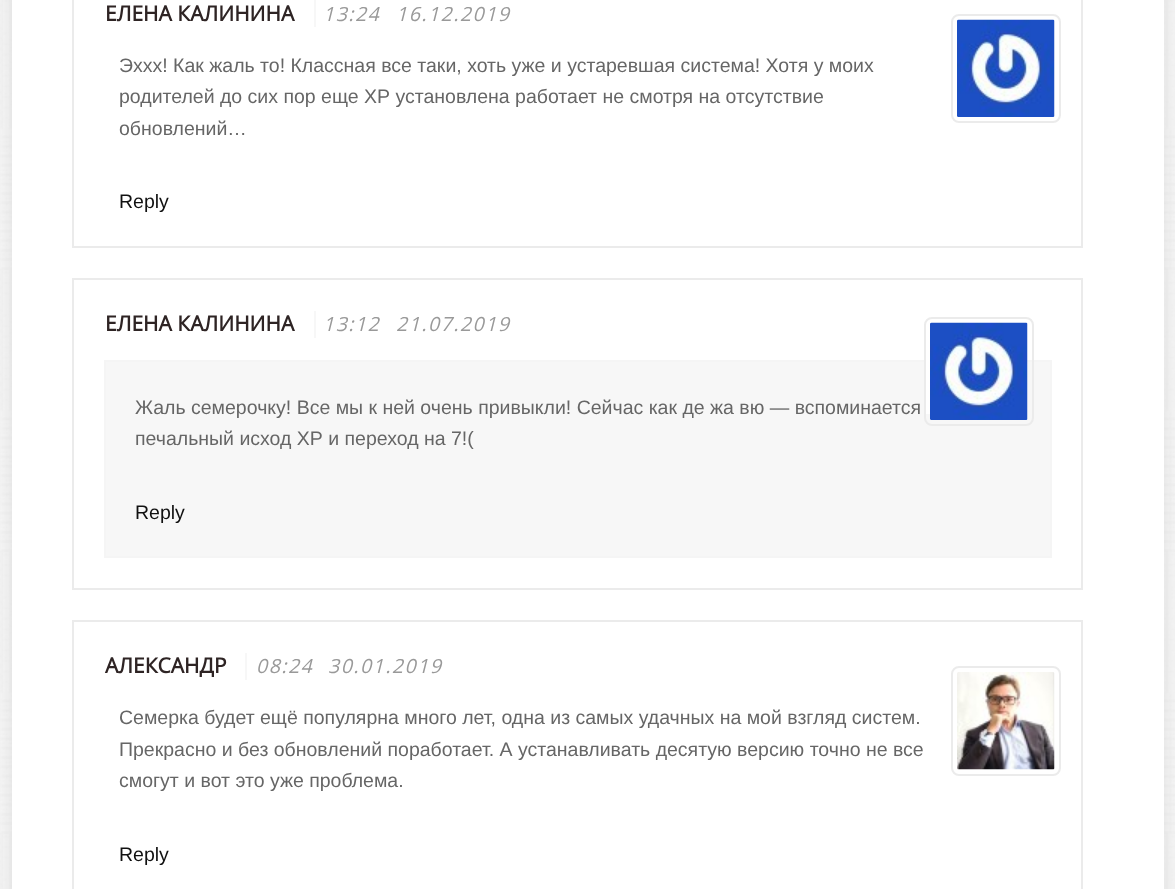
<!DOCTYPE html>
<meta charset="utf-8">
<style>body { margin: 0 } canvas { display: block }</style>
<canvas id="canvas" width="1175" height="889"></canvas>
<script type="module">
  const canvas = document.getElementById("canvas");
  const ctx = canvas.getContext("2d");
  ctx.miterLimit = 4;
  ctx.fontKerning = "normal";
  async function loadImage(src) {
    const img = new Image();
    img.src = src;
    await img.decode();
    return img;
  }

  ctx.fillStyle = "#ffffff";
  ctx.fillRect(0, 0, 1175, 889);
  ctx.drawImage(await loadImage("img1.png"), 0, 0, 1175, 889);
  ctx.fillStyle = "rgba(0, 0, 0, 0.08)";
  ctx.filter = "blur(7.5px)";
  ctx.beginPath();
  ctx.rect(12, -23, 1152, 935);
  ctx.fill();
  ctx.filter = "none";
  ctx.fillStyle = "#ffffff";
  ctx.fillRect(12, 0, 1152, 889);
  ctx.strokeStyle = "#ebebeb";
  ctx.lineWidth = 2;
  ctx.strokeRect(73, -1, 1009, 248);
  ctx.font = "bold 21px Open Sans";
  ctx.fillStyle = "#2e2424";
  ctx.fillText("ЕЛЕНА КАЛИНИНА", 105, 21);
  ctx.fillStyle = "#f7f7f7";
  ctx.fillRect(314, 0, 2, 27);
  ctx.letterSpacing = "1.5px";
  ctx.font = "italic 19.5px Open Sans";
  ctx.fillStyle = "#999999";
  ctx.fillText("13:24", 323, 21);
  ctx.fillText("16.12.2019", 396, 21);
  ctx.beginPath();
  ctx.roundRect(952, 15, 108, 107, 7);
  ctx.stroke();
  ctx.drawImage(await loadImage("img2.png"), 957, 19, 98, 98);
  ctx.letterSpacing = "0px";
  ctx.font = "19.5px Liberation Sans";
  ctx.fillStyle = "#666666";
  ctx.fillText("Эххх! Как жаль то! Классная все таки, хоть уже и устаревшая система! Хотя у моих", 119, 72);
  ctx.fillText("родителей до сих пор еще ХР установлена работает не смотря на отсутствие", 119, 103);
  ctx.fillText("обновлений…", 119, 135);
  ctx.fillStyle = "#111111";
  ctx.fillText("Reply", 119, 208);
  ctx.strokeRect(73, 279, 1009, 310);
  ctx.font = "bold 21px Open Sans";
  ctx.fillStyle = "#2e2424";
  ctx.fillText("ЕЛЕНА КАЛИНИНА", 105, 331);
  ctx.fillStyle = "#f7f7f7";
  ctx.fillRect(314, 311, 2, 27);
  ctx.letterSpacing = "1.5px";
  ctx.font = "italic 19.5px Open Sans";
  ctx.fillStyle = "#999999";
  ctx.fillText("13:12", 323, 331);
  ctx.fillText("21.07.2019", 396, 331);
  ctx.fillStyle = "#f7f7f7";
  ctx.beginPath();
  ctx.rect(105, 361, 946, 196);
  ctx.fill();
  ctx.strokeStyle = "#f5f5f5";
  ctx.stroke();
  ctx.fillStyle = "#ffffff";
  ctx.fillRect(924, 360, 98, 54);
  ctx.beginPath();
  ctx.roundRect(925, 318, 108, 107, 7);
  ctx.strokeStyle = "#ebebeb";
  ctx.stroke();
  ctx.drawImage(await loadImage("img3.png"), 930, 322, 98, 98);
  ctx.letterSpacing = "0px";
  ctx.font = "19.5px Liberation Sans";
  ctx.fillStyle = "#666666";
  ctx.fillText("Жаль семерочку! Все мы к ней очень привыкли! Сейчас как де жа вю — вспоминается", 135, 414);
  ctx.fillText("печальный исход ХР и переход на 7!(", 135, 445);
  ctx.fillStyle = "#111111";
  ctx.fillText("Reply", 135, 519);
  ctx.strokeRect(73, 621, 1009, 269);
  ctx.font = "bold 21px Open Sans";
  ctx.fillStyle = "#2e2424";
  ctx.fillText("АЛЕКСАНДР", 105, 673);
  ctx.fillStyle = "#f7f7f7";
  ctx.fillRect(245, 653, 2, 27);
  ctx.letterSpacing = "1.5px";
  ctx.font = "italic 19.5px Open Sans";
  ctx.fillStyle = "#999999";
  ctx.fillText("08:24", 256, 673);
  ctx.fillText("30.01.2019", 328, 673);
  ctx.beginPath();
  ctx.roundRect(952, 667, 108, 108, 7);
  ctx.stroke();
  ctx.drawImage(await loadImage("img4.png"), 957, 672, 98, 98);
  ctx.letterSpacing = "0px";
  ctx.font = "19.5px Liberation Sans";
  ctx.fillStyle = "#666666";
  ctx.fillText("Семерка будет ещё популярна много лет, одна из самых удачных на мой взгляд систем.", 119, 724);
  ctx.fillText("Прекрасно и без обновлений поработает. А устанавливать десятую версию точно не все", 119, 756);
  ctx.fillText("смогут и вот это уже проблема.", 119, 787);
  ctx.fillStyle = "#111111";
  ctx.fillText("Reply", 119, 861);
</script>
